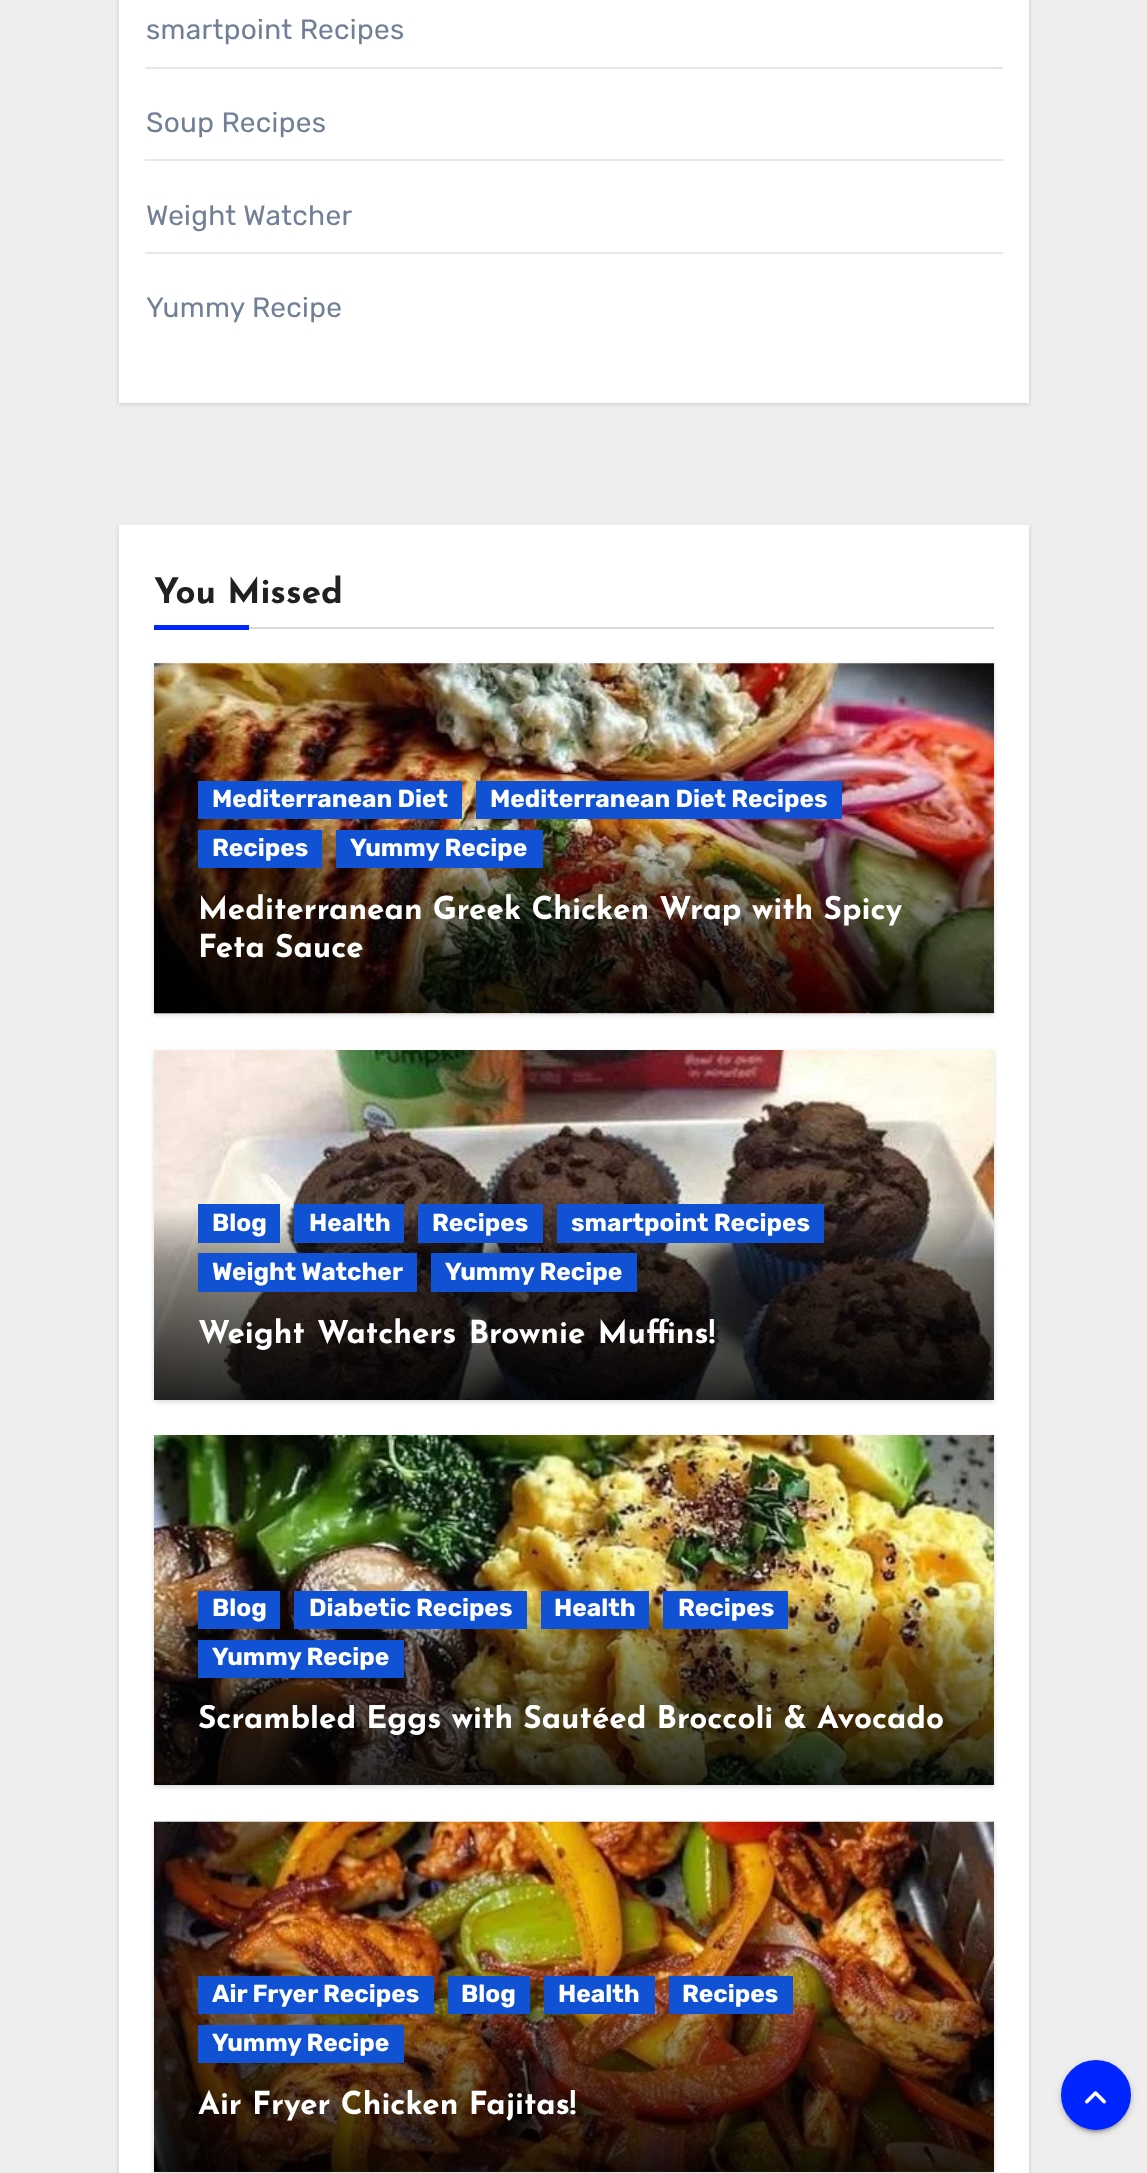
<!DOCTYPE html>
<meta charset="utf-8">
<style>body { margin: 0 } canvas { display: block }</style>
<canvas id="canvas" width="1147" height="2173"></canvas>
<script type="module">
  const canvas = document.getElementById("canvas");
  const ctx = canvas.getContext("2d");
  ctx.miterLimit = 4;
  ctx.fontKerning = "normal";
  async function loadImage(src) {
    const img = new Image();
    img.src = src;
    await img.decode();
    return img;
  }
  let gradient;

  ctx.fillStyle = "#eeeeee";
  ctx.fillRect(0, 0, 1147, 2173);
  ctx.fillStyle = "rgba(0, 0, 0, 0.15)";
  ctx.filter = "blur(2.5px)";
  ctx.beginPath();
  ctx.rect(119, -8, 910, 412);
  ctx.fill();
  ctx.filter = "none";
  ctx.fillStyle = "#ffffff";
  ctx.fillRect(119, 0, 910, 403);
  ctx.fillStyle = "#e2e8f0";
  ctx.fillRect(145, 67, 858, 2);
  ctx.letterSpacing = "0.3px";
  ctx.font = "300 28px Rubik";
  ctx.fillStyle = "#718096";
  ctx.fillText("smartpoint Recipes", 146, 39);
  ctx.fillStyle = "#e2e8f0";
  ctx.fillRect(145, 159, 858, 2);
  ctx.fillStyle = "#718096";
  ctx.fillText("Soup Recipes", 146, 132);
  ctx.fillStyle = "#e2e8f0";
  ctx.fillRect(145, 252, 858, 2);
  ctx.fillStyle = "#718096";
  ctx.fillText("Weight Watcher", 146, 225);
  ctx.fillText("Yummy Recipe", 146, 317);
  ctx.fillStyle = "rgba(0, 0, 0, 0.15)";
  ctx.filter = "blur(2.5px)";
  ctx.beginPath();
  ctx.rect(119, 527, 910, 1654);
  ctx.fill();
  ctx.filter = "none";
  ctx.fillStyle = "#ffffff";
  ctx.fillRect(119, 525, 910, 1648);
  ctx.fillStyle = "#d7d7d7";
  ctx.fillRect(249, 627, 745, 2);
  ctx.letterSpacing = "0px";
  ctx.font = "100 35px Josefin Sans";
  ctx.fillStyle = "#212121";
  ctx.fillText("You Missed", 154, 603);
  ctx.fillStyle = "#0025ff";
  ctx.fillRect(154, 625, 95, 5);
  ctx.fillStyle = "rgba(0, 0, 0, 0.15)";
  ctx.filter = "blur(2.5px)";
  ctx.beginPath();
  ctx.rect(154, 665, 840, 350);
  ctx.fill();
  ctx.filter = "none";
  ctx.drawImage(await loadImage("img1.png"), 154, 663, 840, 351);
  ctx.fillStyle = "#1151d3";
  ctx.fillRect(198, 781, 264, 38);
  ctx.font = "300 24.5px 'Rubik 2'";
  ctx.fillStyle = "#ffffff";
  ctx.fillText("Mediterranean Diet", 212, 807);
  ctx.fillStyle = "#1151d3";
  ctx.fillRect(476, 781, 366, 38);
  ctx.fillStyle = "#ffffff";
  ctx.fillText("Mediterranean Diet Recipes", 490, 807);
  gradient = ctx.createLinearGradient(574, 663, 574, 1013);
  gradient.addColorStop(0, "rgba(255, 255, 255, 0)");
  gradient.addColorStop(0.45, "rgba(0, 0, 0, 0)");
  gradient.addColorStop(0.6, "rgba(0, 0, 0, 0.4)");
  gradient.addColorStop(1, "rgba(0, 0, 0, 0.85)");
  ctx.fillStyle = gradient;
  ctx.fillRect(154, 823, 840, 190);
  ctx.fillStyle = "#1151d3";
  ctx.fillRect(198, 830, 124, 38);
  ctx.fillStyle = "#ffffff";
  ctx.fillText("Recipes", 212, 856);
  ctx.fillStyle = "#1151d3";
  ctx.fillRect(336, 830, 207, 38);
  ctx.fillStyle = "#ffffff";
  ctx.fillText("Yummy Recipe", 350, 856);
  ctx.font = "100 31.5px Josefin Sans";
  ctx.fillText("Mediterranean Greek Chicken Wrap with Spicy", 198, 919);
  ctx.fillText("Feta Sauce", 198, 957);
  ctx.fillStyle = "rgba(0, 0, 0, 0.15)";
  ctx.filter = "blur(2.5px)";
  ctx.beginPath();
  ctx.rect(154, 1052, 840, 350);
  ctx.fill();
  ctx.filter = "none";
  ctx.drawImage(await loadImage("img2.png"), 154, 1050, 840, 350);
  ctx.fillStyle = "#1151d3";
  ctx.fillRect(198, 1204, 82, 39);
  ctx.font = "300 24.5px 'Rubik 2'";
  ctx.fillStyle = "#ffffff";
  ctx.fillText("Blog", 212, 1231);
  ctx.fillStyle = "#1151d3";
  ctx.fillRect(294, 1204, 110, 39);
  ctx.fillStyle = "#ffffff";
  ctx.fillText("Health", 309, 1231);
  ctx.fillStyle = "#1151d3";
  ctx.fillRect(418, 1204, 125, 39);
  ctx.fillStyle = "#ffffff";
  ctx.fillText("Recipes", 432, 1231);
  ctx.fillStyle = "#1151d3";
  ctx.fillRect(557, 1204, 267, 39);
  ctx.fillStyle = "#ffffff";
  ctx.fillText("smartpoint Recipes", 571, 1231);
  ctx.fillStyle = "#1151d3";
  ctx.fillRect(198, 1253, 219, 39);
  ctx.fillStyle = "#ffffff";
  ctx.fillText("Weight Watcher", 212, 1280);
  ctx.fillStyle = "#1151d3";
  ctx.fillRect(431, 1253, 206, 39);
  ctx.fillStyle = "#ffffff";
  ctx.fillText("Yummy Recipe", 445, 1280);
  ctx.wordSpacing = "2px";
  ctx.font = "100 31.5px Josefin Sans";
  ctx.fillText("Weight Watchers Brownie Muffins!", 198, 1343);
  ctx.fillStyle = "rgba(0, 0, 0, 0.15)";
  ctx.filter = "blur(2.5px)";
  ctx.beginPath();
  ctx.rect(154, 1437, 840, 350);
  ctx.fill();
  ctx.filter = "none";
  ctx.drawImage(await loadImage("img3.png"), 154, 1435, 840, 350);
  ctx.fillStyle = "#1151d3";
  ctx.fillRect(198, 1591, 82, 38);
  ctx.wordSpacing = "0px";
  ctx.font = "300 24.5px 'Rubik 2'";
  ctx.fillStyle = "#ffffff";
  ctx.fillText("Blog", 212, 1616);
  ctx.fillStyle = "#1151d3";
  ctx.fillRect(294, 1591, 233, 38);
  ctx.fillStyle = "#ffffff";
  ctx.fillText("Diabetic Recipes", 309, 1616);
  ctx.fillStyle = "#1151d3";
  ctx.fillRect(541, 1591, 108, 38);
  ctx.fillStyle = "#ffffff";
  ctx.fillText("Health", 554, 1616);
  ctx.fillStyle = "#1151d3";
  ctx.fillRect(663, 1591, 125, 38);
  ctx.fillStyle = "#ffffff";
  ctx.fillText("Recipes", 678, 1616);
  ctx.fillStyle = "#1151d3";
  ctx.fillRect(198, 1640, 206, 38);
  ctx.fillStyle = "#ffffff";
  ctx.fillText("Yummy Recipe", 212, 1665);
  ctx.save();
  ctx.beginPath();
  ctx.rect(198, 1705, 752, 36);
  ctx.clip();
  ctx.font = "100 31.5px Josefin Sans";
  ctx.fillText("Scrambled Eggs with Sautéed Broccoli & Avocado", 198, 1728);
  ctx.restore();
  ctx.fillStyle = "rgba(0, 0, 0, 0.15)";
  ctx.filter = "blur(2.5px)";
  ctx.beginPath();
  ctx.rect(154, 1824, 840, 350);
  ctx.fill();
  ctx.filter = "none";
  ctx.drawImage(await loadImage("img4.png"), 154, 1821, 840, 351);
  gradient = ctx.createLinearGradient(574, 1822, 574, 2172);
  gradient.addColorStop(0, "rgba(255, 255, 255, 0)");
  gradient.addColorStop(0.45, "rgba(0, 0, 0, 0)");
  gradient.addColorStop(0.6, "rgba(0, 0, 0, 0.4)");
  gradient.addColorStop(1, "rgba(0, 0, 0, 0.85)");
  ctx.fillStyle = gradient;
  ctx.fillRect(154, 1982, 840, 190);
  ctx.fillStyle = "#1151d3";
  ctx.fillRect(198, 1976, 236, 38);
  ctx.fillStyle = "#ffffff";
  ctx.fillText("Air Fryer Recipes", 212, 2002);
  ctx.fillStyle = "#1151d3";
  ctx.fillRect(448, 1976, 82, 38);
  ctx.fillStyle = "#ffffff";
  ctx.fillText("Blog", 461, 2002);
  ctx.fillStyle = "#1151d3";
  ctx.fillRect(544, 1976, 111, 38);
  ctx.fillStyle = "#ffffff";
  ctx.fillText("Health", 558, 2002);
  ctx.fillStyle = "#1151d3";
  ctx.fillRect(669, 1976, 124, 38);
  ctx.fillStyle = "#ffffff";
  ctx.fillText("Recipes", 682, 2002);
  ctx.fillStyle = "#1151d3";
  ctx.fillRect(198, 2025, 206, 38);
  ctx.fillStyle = "#ffffff";
  ctx.fillText("Yummy Recipe", 212, 2051);
  ctx.save();
  ctx.beginPath();
  ctx.rect(198, 2090, 752, 38);
  ctx.clip();
  ctx.font = "100 31.5px Josefin Sans";
  ctx.fillText("Air Fryer Chicken Fajitas!", 198, 2114);
  ctx.restore();
  ctx.fillStyle = "rgba(0, 0, 0, 0.12)";
  ctx.filter = "blur(4.5px)";
  ctx.beginPath();
  ctx.roundRect(1061, 2062, 70, 70, 35);
  ctx.fill();
  ctx.filter = "none";
  ctx.fillStyle = "rgba(0, 0, 0, 0.2)";
  ctx.filter = "blur(1px)";
  ctx.beginPath();
  ctx.roundRect(1064, 2069, 63, 63, 31.5);
  ctx.fill();
  ctx.filter = "none";
  ctx.fillStyle = "rgba(0, 0, 0, 0.14)";
  ctx.filter = "blur(2px)";
  ctx.beginPath();
  ctx.roundRect(1061, 2063, 70, 70, 35);
  ctx.fill();
  ctx.filter = "none";
  ctx.fillStyle = "#0025ff";
  ctx.beginPath();
  ctx.arc(1096, 2095, 33, 0, Math.PI * 2);
  ctx.fill();
  ctx.strokeStyle = "#0025ff";
  ctx.lineWidth = 4;
  ctx.stroke();
  ctx.drawImage(await loadImage("img5.png"), 1085, 2091, 21, 13);
</script>
